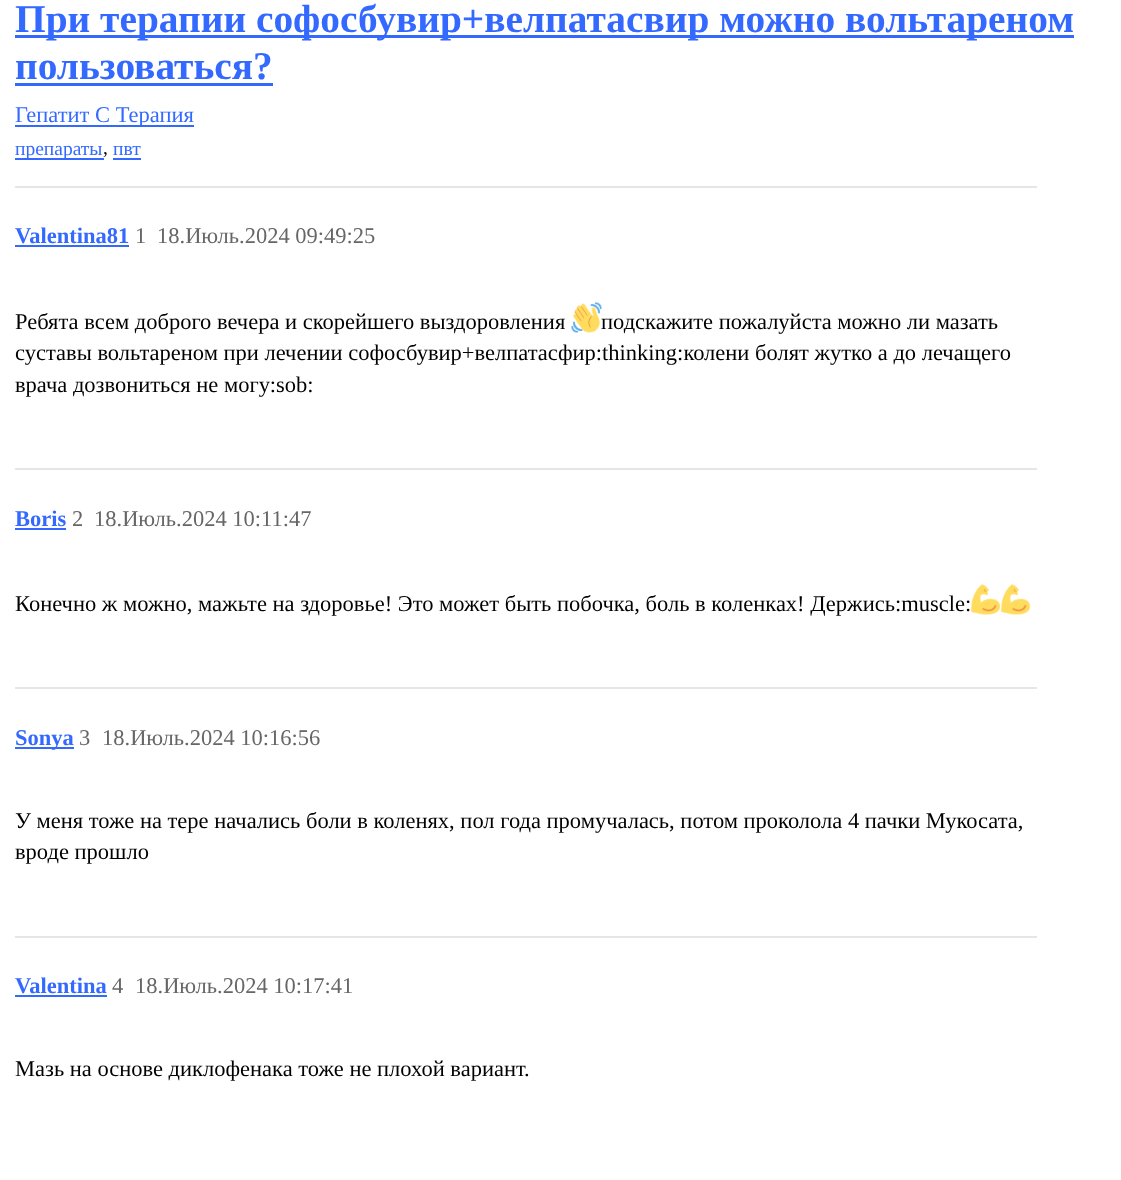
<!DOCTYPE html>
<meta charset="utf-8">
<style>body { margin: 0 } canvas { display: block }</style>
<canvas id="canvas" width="1121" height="1180"></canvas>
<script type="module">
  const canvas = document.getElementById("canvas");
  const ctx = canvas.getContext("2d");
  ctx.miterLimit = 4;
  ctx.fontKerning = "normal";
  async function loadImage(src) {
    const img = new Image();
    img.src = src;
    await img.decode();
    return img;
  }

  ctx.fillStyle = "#ffffff";
  ctx.fillRect(0, 0, 1121, 1180);
  ctx.fillStyle = "#3369ff";
  ctx.fillRect(15, 35, 1059, 3);
  ctx.font = "bold 39.4px Liberation Serif";
  ctx.fillText("При терапии софосбувир+велпатасвир можно вольтареном", 15, 32);
  ctx.fillText("пользоваться?", 15, 79);
  ctx.fillRect(15, 83, 258, 3);
  ctx.fillRect(15, 125, 179, 2);
  ctx.font = "22.5px Liberation Serif";
  ctx.fillText("Гепатит C Терапия", 15, 122);
  ctx.fillRect(15, 158, 89, 2);
  ctx.font = "19.5px Liberation Serif";
  ctx.fillText("препараты", 15, 155);
  ctx.fillStyle = "#000000";
  ctx.fillText(",", 103, 154);
  ctx.fillStyle = "#3369ff";
  ctx.fillText("пвт", 113, 155);
  ctx.fillRect(113, 158, 28, 2);
  ctx.fillStyle = "#e6e6e6";
  ctx.fillRect(15, 186, 1022, 2);
  ctx.font = "bold 22.5px Liberation Serif";
  ctx.fillStyle = "#3369ff";
  ctx.fillText("Valentina81", 15, 243);
  ctx.fillRect(15, 245, 114, 2);
  ctx.font = "22.5px Liberation Serif";
  ctx.fillStyle = "#666666";
  ctx.fillText("1", 135, 243);
  ctx.fillText("18.Июль.2024 09:49:25", 157, 243);
  ctx.fillStyle = "#000000";
  ctx.fillText("Ребята всем доброго вечера и скорейшего выздоровления", 15, 329);
  ctx.drawImage(await loadImage("img1.png"), 571, 302, 31, 31);
  ctx.fillText("подскажите пожалуйста можно ли мазать", 601, 329);
  ctx.fillText("суставы вольтареном при лечении софосбувир+велпатасфир:thinking:колени болят жутко а до лечащего", 15, 360);
  ctx.fillText("врача дозвониться не могу:sob:", 15, 392);
  ctx.fillStyle = "#e6e6e6";
  ctx.fillRect(15, 468, 1022, 2);
  ctx.font = "bold 22.5px Liberation Serif";
  ctx.fillStyle = "#3369ff";
  ctx.fillText("Boris", 15, 526);
  ctx.fillRect(15, 528, 51, 2);
  ctx.font = "22.5px Liberation Serif";
  ctx.fillStyle = "#666666";
  ctx.fillText("2", 72, 526);
  ctx.fillText("18.Июль.2024 10:11:47", 94, 526);
  ctx.fillStyle = "#000000";
  ctx.fillText("Конечно ж можно, мажьте на здоровье! Это может быть побочка, боль в коленках! Держись:muscle:", 15, 611);
  ctx.drawImage(await loadImage("img2.png"), 970, 584, 31, 31);
  ctx.drawImage(await loadImage("img3.png"), 1000, 584, 31, 31);
  ctx.fillStyle = "#e6e6e6";
  ctx.fillRect(15, 687, 1022, 2);
  ctx.fillStyle = "#3369ff";
  ctx.fillRect(15, 747, 59, 2);
  ctx.font = "bold 22.5px Liberation Serif";
  ctx.fillText("Sonya", 15, 745);
  ctx.font = "22.5px Liberation Serif";
  ctx.fillStyle = "#666666";
  ctx.fillText("3", 79, 745);
  ctx.fillText("18.Июль.2024 10:16:56", 102, 745);
  ctx.fillStyle = "#000000";
  ctx.fillText("У меня тоже на тере начались боли в коленях, пол года промучалась, потом проколола 4 пачки Мукосата,", 15, 828);
  ctx.fillText("вроде прошло", 15, 859);
  ctx.fillStyle = "#e6e6e6";
  ctx.fillRect(15, 936, 1022, 2);
  ctx.font = "bold 22.5px Liberation Serif";
  ctx.fillStyle = "#3369ff";
  ctx.fillText("Valentina", 15, 993);
  ctx.fillRect(15, 995, 92, 2);
  ctx.font = "22.5px Liberation Serif";
  ctx.fillStyle = "#666666";
  ctx.fillText("4", 112, 993);
  ctx.fillText("18.Июль.2024 10:17:41", 135, 993);
  ctx.fillStyle = "#000000";
  ctx.fillText("Мазь на основе диклофенака тоже не плохой вариант.", 15, 1076);
</script>
